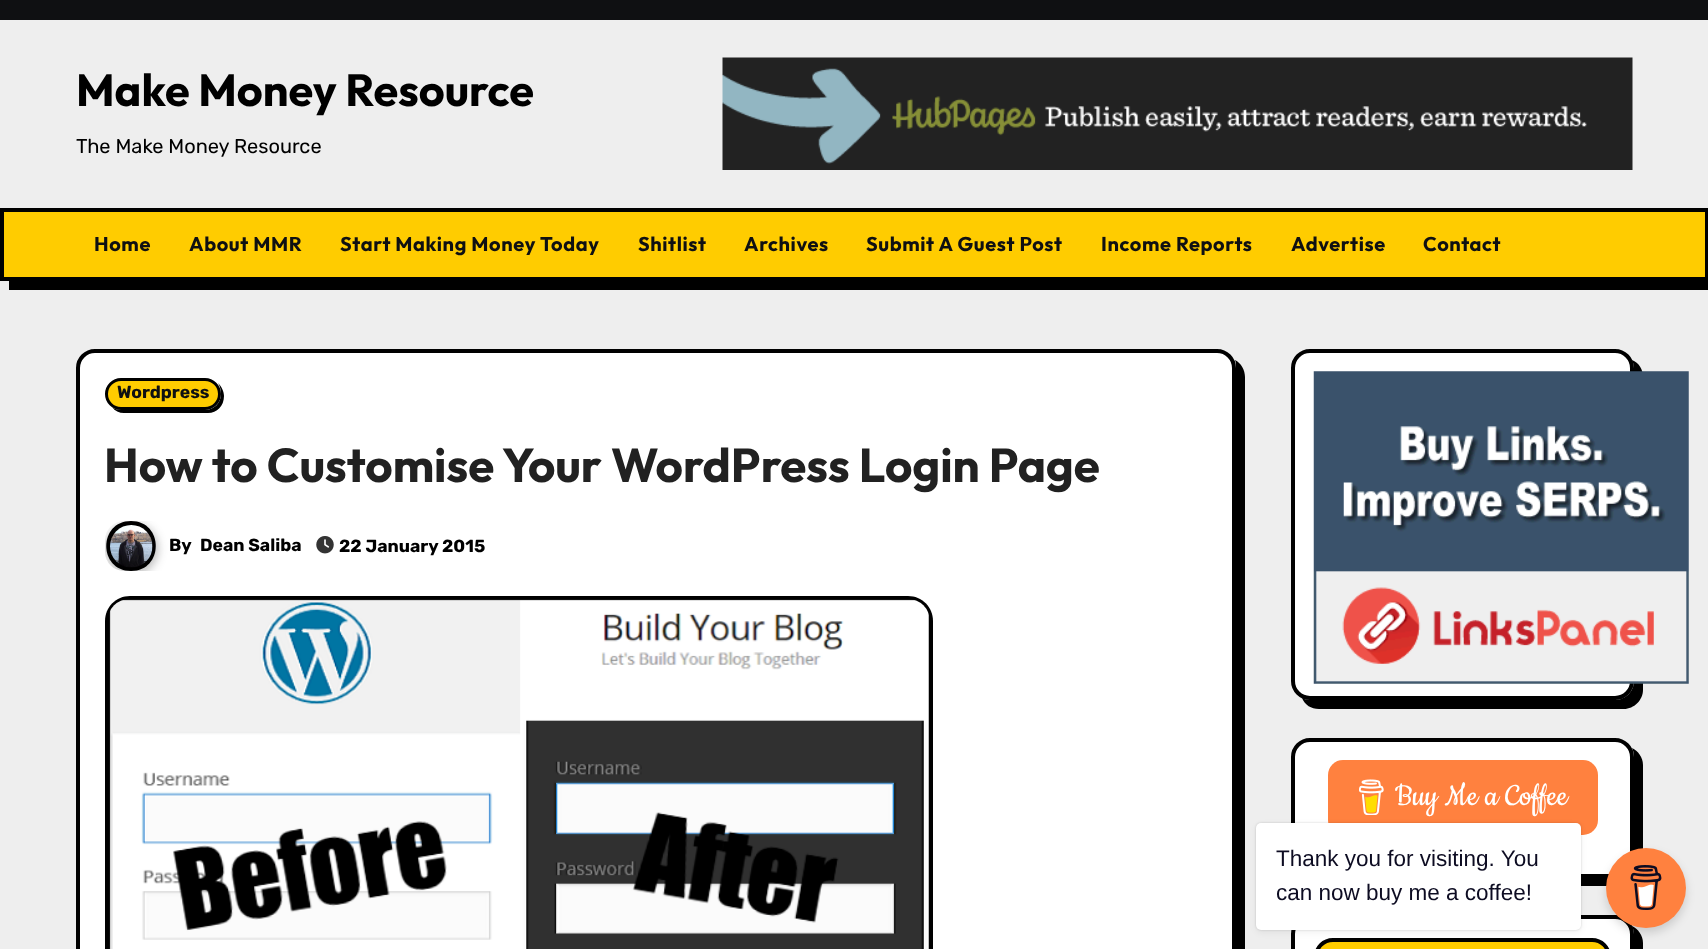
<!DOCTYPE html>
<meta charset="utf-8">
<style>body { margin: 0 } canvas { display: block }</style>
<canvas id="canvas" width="1708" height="949"></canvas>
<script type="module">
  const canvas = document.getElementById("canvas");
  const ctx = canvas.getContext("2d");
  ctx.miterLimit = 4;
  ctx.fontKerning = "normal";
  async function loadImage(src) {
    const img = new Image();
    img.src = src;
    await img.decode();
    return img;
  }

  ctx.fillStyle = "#eeeeee";
  ctx.fillRect(0, 0, 1708, 949);
  ctx.fillStyle = "#0f1012";
  ctx.fillRect(0, 0, 1708, 20);
  ctx.font = "bold 45px Outfit";
  ctx.fillStyle = "#000000";
  ctx.fillText("Make Money Resource", 76, 106);
  ctx.font = "300 20px Rubik";
  ctx.fillText("The Make Money Resource", 76, 153);
  ctx.drawImage(await loadImage("img1.png"), 722, 57, 911, 113);
  ctx.beginPath();
  ctx.moveTo(9, 281);
  ctx.lineTo(9, 290);
  ctx.lineTo(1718, 290);
  ctx.lineTo(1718, 216);
  ctx.lineTo(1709, 216);
  ctx.lineTo(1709, 281);
  ctx.closePath();
  ctx.fill();
  ctx.fillStyle = "#ffcc00";
  ctx.beginPath();
  ctx.rect(2, 210, 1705, 69);
  ctx.fill();
  ctx.strokeStyle = "#000000";
  ctx.lineWidth = 4;
  ctx.stroke();
  ctx.letterSpacing = "0.6px";
  ctx.font = "bold 20px Outfit";
  ctx.fillStyle = "#0f1012";
  ctx.fillText("Home", 94, 251);
  ctx.fillText("About MMR", 189, 251);
  ctx.fillText("Start Making Money Today", 340, 251);
  ctx.fillText("Shitlist", 638, 251);
  ctx.fillText("Archives", 744, 251);
  ctx.fillText("Submit A Guest Post", 866, 251);
  ctx.fillText("Income Reports", 1101, 251);
  ctx.fillText("Advertise", 1291, 251);
  ctx.fillText("Contact", 1423, 251);
  ctx.fillStyle = "#000000";
  ctx.beginPath();
  ctx.moveTo(87, 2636);
  ctx.bezierCurveTo(90, 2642, 97, 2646, 104, 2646);
  ctx.lineTo(1226, 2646);
  ctx.bezierCurveTo(1236, 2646, 1245, 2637, 1245, 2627);
  ctx.lineTo(1245, 377);
  ctx.bezierCurveTo(1245, 370, 1241, 363, 1235, 360);
  ctx.bezierCurveTo(1236, 362, 1236, 365, 1236, 368);
  ctx.lineTo(1236, 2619);
  ctx.bezierCurveTo(1236, 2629, 1228, 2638, 1218, 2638);
  ctx.lineTo(95, 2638);
  ctx.bezierCurveTo(92, 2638, 90, 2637, 87, 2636);
  ctx.closePath();
  ctx.fill();
  ctx.fillStyle = "#ffffff";
  ctx.beginPath();
  ctx.roundRect(78, 351, 1156, 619, 17);
  ctx.fill();
  ctx.stroke();
  ctx.fillStyle = "#000000";
  ctx.beginPath();
  ctx.moveTo(112, 407);
  ctx.bezierCurveTo(115, 411, 119, 413, 124, 413);
  ctx.lineTo(208, 413);
  ctx.bezierCurveTo(217, 413, 224, 406, 224, 396);
  ctx.bezierCurveTo(224, 391, 221, 386, 218, 383);
  ctx.bezierCurveTo(220, 386, 221, 390, 221, 394);
  ctx.bezierCurveTo(221, 403, 214, 410, 205, 410);
  ctx.lineTo(121, 410);
  ctx.bezierCurveTo(118, 410, 114, 409, 112, 407);
  ctx.closePath();
  ctx.fill();
  ctx.fillStyle = "#ffcc00";
  ctx.beginPath();
  ctx.roundRect(106.5, 379.5, 113, 29, 14.5);
  ctx.fill();
  ctx.lineWidth = 3;
  ctx.stroke();
  ctx.letterSpacing = "0px";
  ctx.font = "bold 17.5px Rubik";
  ctx.fillStyle = "#0f1012";
  ctx.fillText("Wordpress", 117, 398);
  ctx.font = "bold 47.5px Outfit";
  ctx.fillStyle = "#212121";
  ctx.fillText("How to Customise Your WordPress Login Page", 104, 482);
  ctx.save();
  ctx.beginPath();
  ctx.roundRect(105, 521, 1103, 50, 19);
  ctx.clip();
  ctx.fillStyle = "rgba(33, 33, 33, 0.3)";
  ctx.filter = "blur(5px)";
  ctx.beginPath();
  ctx.roundRect(105, 523, 53, 52, 26);
  ctx.fill();
  ctx.filter = "none";
  ctx.restore();
  ctx.fillStyle = "#000000";
  ctx.beginPath();
  ctx.moveTo(131, 521);
  ctx.bezierCurveTo(98, 521, 98, 571, 131, 571);
  ctx.bezierCurveTo(164, 571, 164, 521, 131, 521);
  ctx.closePath();
  ctx.fill();
  ctx.drawImage(await loadImage("img2.png"), 110, 525, 43, 43);
  ctx.font = "bold 17.5px Rubik";
  ctx.fillText("By", 169, 551);
  ctx.fillText("Dean Saliba", 200, 551);
  ctx.drawImage(await loadImage("img3.png"), 316, 536, 18, 18);
  ctx.fillText("22 January 2015", 339, 552);
  ctx.beginPath();
  ctx.moveTo(130, 596);
  ctx.lineTo(908, 596);
  ctx.bezierCurveTo(922, 596, 933, 607, 933, 621);
  ctx.lineTo(933, 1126);
  ctx.bezierCurveTo(933, 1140, 922, 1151, 908, 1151);
  ctx.lineTo(130, 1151);
  ctx.bezierCurveTo(116, 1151, 105, 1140, 105, 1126);
  ctx.lineTo(105, 621);
  ctx.bezierCurveTo(105, 607, 116, 596, 130, 596);
  ctx.closePath();
  ctx.fill();
  ctx.drawImage(await loadImage("img4.png"), 109, 599, 820, 350);
  ctx.beginPath();
  ctx.moveTo(1302, 698);
  ctx.bezierCurveTo(1305, 705, 1311, 709, 1319, 709);
  ctx.lineTo(1624, 709);
  ctx.bezierCurveTo(1634, 709, 1643, 700, 1643, 690);
  ctx.lineTo(1643, 377);
  ctx.bezierCurveTo(1643, 369, 1639, 363, 1632, 360);
  ctx.bezierCurveTo(1633, 362, 1634, 365, 1634, 368);
  ctx.lineTo(1634, 681);
  ctx.bezierCurveTo(1634, 692, 1625, 700, 1615, 700);
  ctx.lineTo(1310, 700);
  ctx.bezierCurveTo(1307, 700, 1304, 699, 1302, 698);
  ctx.closePath();
  ctx.fill();
  ctx.fillStyle = "#ffffff";
  ctx.beginPath();
  ctx.roundRect(1293, 351, 339, 347, 17);
  ctx.fill();
  ctx.lineWidth = 4;
  ctx.stroke();
  ctx.drawImage(await loadImage("img5.png"), 1313, 371, 376, 313);
  ctx.fillStyle = "#000000";
  ctx.beginPath();
  ctx.moveTo(1302, 876);
  ctx.bezierCurveTo(1305, 882, 1312, 886, 1319, 886);
  ctx.lineTo(1624, 886);
  ctx.bezierCurveTo(1634, 886, 1643, 877, 1643, 867);
  ctx.lineTo(1643, 765);
  ctx.bezierCurveTo(1643, 757, 1638, 751, 1632, 748);
  ctx.bezierCurveTo(1633, 750, 1634, 753, 1634, 756);
  ctx.lineTo(1634, 859);
  ctx.bezierCurveTo(1634, 869, 1625, 878, 1615, 878);
  ctx.lineTo(1310, 878);
  ctx.bezierCurveTo(1307, 878, 1305, 877, 1302, 876);
  ctx.closePath();
  ctx.fill();
  ctx.fillStyle = "#ffffff";
  ctx.beginPath();
  ctx.roundRect(1293, 740, 339, 136, 17);
  ctx.fill();
  ctx.stroke();
  ctx.fillStyle = "#ff813f";
  ctx.beginPath();
  ctx.roundRect(1328, 760, 270, 75, 15);
  ctx.fill();
  ctx.drawImage(await loadImage("img6.png"), 1359, 779, 25, 36);
  ctx.font = "35px Cookie";
  ctx.fillStyle = "#ffffff";
  ctx.fillText("Buy Me a Coffee", 1395, 805);
  ctx.fillStyle = "#000000";
  ctx.beginPath();
  ctx.moveTo(1302, 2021);
  ctx.bezierCurveTo(1305, 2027, 1312, 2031, 1319, 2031);
  ctx.lineTo(1624, 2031);
  ctx.bezierCurveTo(1634, 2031, 1643, 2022, 1643, 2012);
  ctx.lineTo(1643, 943);
  ctx.bezierCurveTo(1643, 935, 1638, 929, 1632, 926);
  ctx.bezierCurveTo(1633, 928, 1634, 931, 1634, 934);
  ctx.lineTo(1634, 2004);
  ctx.bezierCurveTo(1634, 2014, 1625, 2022, 1615, 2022);
  ctx.lineTo(1310, 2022);
  ctx.bezierCurveTo(1307, 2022, 1305, 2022, 1302, 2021);
  ctx.closePath();
  ctx.fill();
  ctx.fillStyle = "#ffffff";
  ctx.beginPath();
  ctx.roundRect(1293, 917, 339, 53, 17);
  ctx.fill();
  ctx.stroke();
  ctx.fillStyle = "#ffcc00";
  ctx.beginPath();
  ctx.moveTo(1333, 940);
  ctx.lineTo(1592, 940);
  ctx.bezierCurveTo(1601.5, 940, 1609, 947.5, 1609, 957);
  ctx.lineTo(1609, 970);
  ctx.lineTo(1316, 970);
  ctx.lineTo(1316, 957);
  ctx.bezierCurveTo(1316, 947.5, 1323.5, 940, 1333, 940);
  ctx.closePath();
  ctx.fill();
  ctx.stroke();
  ctx.fillStyle = "rgba(0, 0, 0, 0.15)";
  ctx.filter = "blur(1px)";
  ctx.beginPath();
  ctx.roundRect(1256, 823, 325, 107, 5);
  ctx.fill();
  ctx.filter = "none";
  ctx.fillStyle = "rgba(0, 0, 0, 0.05)";
  ctx.filter = "blur(3px)";
  ctx.beginPath();
  ctx.roundRect(1256, 825, 325, 108, 5);
  ctx.fill();
  ctx.filter = "none";
  ctx.fillStyle = "#ffffff";
  ctx.beginPath();
  ctx.roundRect(1256, 823, 325, 107, 5);
  ctx.fill();
  ctx.font = "22.5px Liberation Sans";
  ctx.fillStyle = "#0d0c22";
  ctx.fillText("Thank you for visiting. You", 1276, 866);
  ctx.fillText("can now buy me a coffee!", 1276, 900);
  ctx.fillStyle = "rgba(0, 0, 0, 0.15)";
  ctx.filter = "blur(5px)";
  ctx.beginPath();
  ctx.roundRect(1606, 853, 80, 80, 40);
  ctx.fill();
  ctx.filter = "none";
  ctx.fillStyle = "#ff813f";
  ctx.beginPath();
  ctx.arc(1646, 888, 40, 0, Math.PI * 2);
  ctx.fill();
  ctx.drawImage(await loadImage("img7.png"), 1630, 865, 32, 45);
</script>
